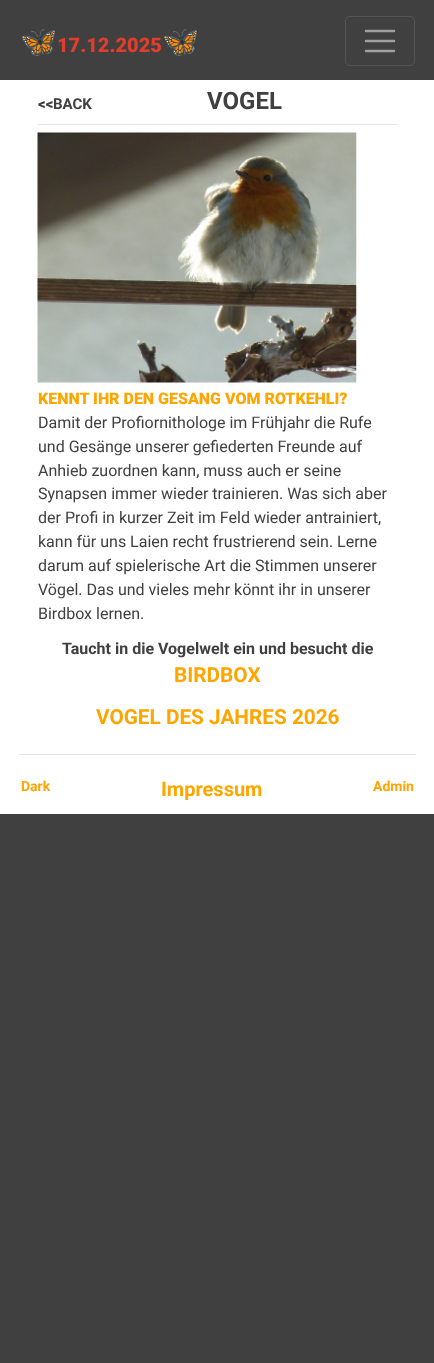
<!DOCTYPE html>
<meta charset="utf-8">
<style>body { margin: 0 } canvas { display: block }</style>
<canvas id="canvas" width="434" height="1363"></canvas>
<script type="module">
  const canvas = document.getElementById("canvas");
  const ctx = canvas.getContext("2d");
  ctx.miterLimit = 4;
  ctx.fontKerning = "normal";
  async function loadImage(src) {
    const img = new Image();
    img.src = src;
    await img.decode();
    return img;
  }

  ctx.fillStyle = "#404040";
  ctx.fillRect(0, 0, 434, 1363);
  ctx.fillStyle = "#ffffff";
  ctx.fillRect(0, 80, 434, 734);
  ctx.font = "bold 30px Noto Color Emoji";
  ctx.fillStyle = "#e03e2d";
  ctx.fillText("🦋", 20, 52);
  ctx.font = "900 20px Roboto";
  ctx.fillText("17.12.2025", 57, 52);
  ctx.font = "bold 30px Noto Color Emoji";
  ctx.fillText("🦋", 162, 52);
  ctx.beginPath();
  ctx.roundRect(345.5, 16.5, 69, 49, 4.5);
  ctx.strokeStyle = "#535353";
  ctx.stroke();
  ctx.beginPath();
  ctx.moveTo(366, 31);
  ctx.lineTo(394, 31);
  ctx.moveTo(366, 41);
  ctx.lineTo(394, 41);
  ctx.moveTo(366, 51);
  ctx.lineTo(394, 51);
  ctx.strokeStyle = "#a0a0a0";
  ctx.lineWidth = 2.5;
  ctx.lineCap = "round";
  ctx.stroke();
  ctx.font = "900 15px Roboto";
  ctx.fillStyle = "#404040";
  ctx.fillText("<<", 38, 109);
  ctx.font = "bold 15px Roboto";
  ctx.fillText("BACK", 53, 109);
  ctx.font = "bold 24px Roboto";
  ctx.fillText("VOGEL", 207, 109);
  ctx.fillStyle = "#e6e6e6";
  ctx.fillRect(38, 124, 360, 1);
  ctx.drawImage(await loadImage("img1.png"), 37, 132, 320, 251);
  ctx.font = "900 16px Roboto";
  ctx.fillStyle = "#ffa500";
  ctx.fillText("KENNT IHR DEN GESANG VOM ROTKEHLI?", 38, 404);
  ctx.font = "16px Roboto";
  ctx.fillStyle = "#404040";
  ctx.fillText("Damit der Profiornithologe im Frühjahr die Rufe", 38, 428);
  ctx.fillText("und Gesänge unserer gefiederten Freunde auf", 38, 452);
  ctx.fillText("Anhieb zuordnen kann, muss auch er seine", 38, 476);
  ctx.fillText("Synapsen immer wieder trainieren. Was sich aber", 38, 499);
  ctx.fillText("der Profi in kurzer Zeit im Feld wieder antrainiert,", 38, 523);
  ctx.fillText("kann für uns Laien recht frustrierend sein. Lerne", 38, 547);
  ctx.fillText("darum auf spielerische Art die Stimmen unserer", 38, 571);
  ctx.fillText("Vögel. Das und vieles mehr könnt ihr in unserer", 38, 595);
  ctx.fillText("Birdbox lernen.", 38, 619);
  ctx.font = "bold 16px Roboto";
  ctx.fillText("Taucht in die Vogelwelt ein und besucht die", 62, 654);
  ctx.font = "bold 20.75px Roboto";
  ctx.fillStyle = "#ffa500";
  ctx.fillText("BIRDBOX", 174, 682);
  ctx.fillText("VOGEL DES JAHRES 2026", 96, 724);
  ctx.fillStyle = "#e6e6e6";
  ctx.fillRect(19, 754, 397, 1);
  ctx.font = "bold 14px Roboto";
  ctx.fillStyle = "#ffa500";
  ctx.fillText("Dark", 21, 791);
  ctx.font = "bold 20px Roboto";
  ctx.fillText("Impressum", 161, 796);
  ctx.font = "bold 14px Roboto";
  ctx.fillText("Admin", 373, 791);
</script>
